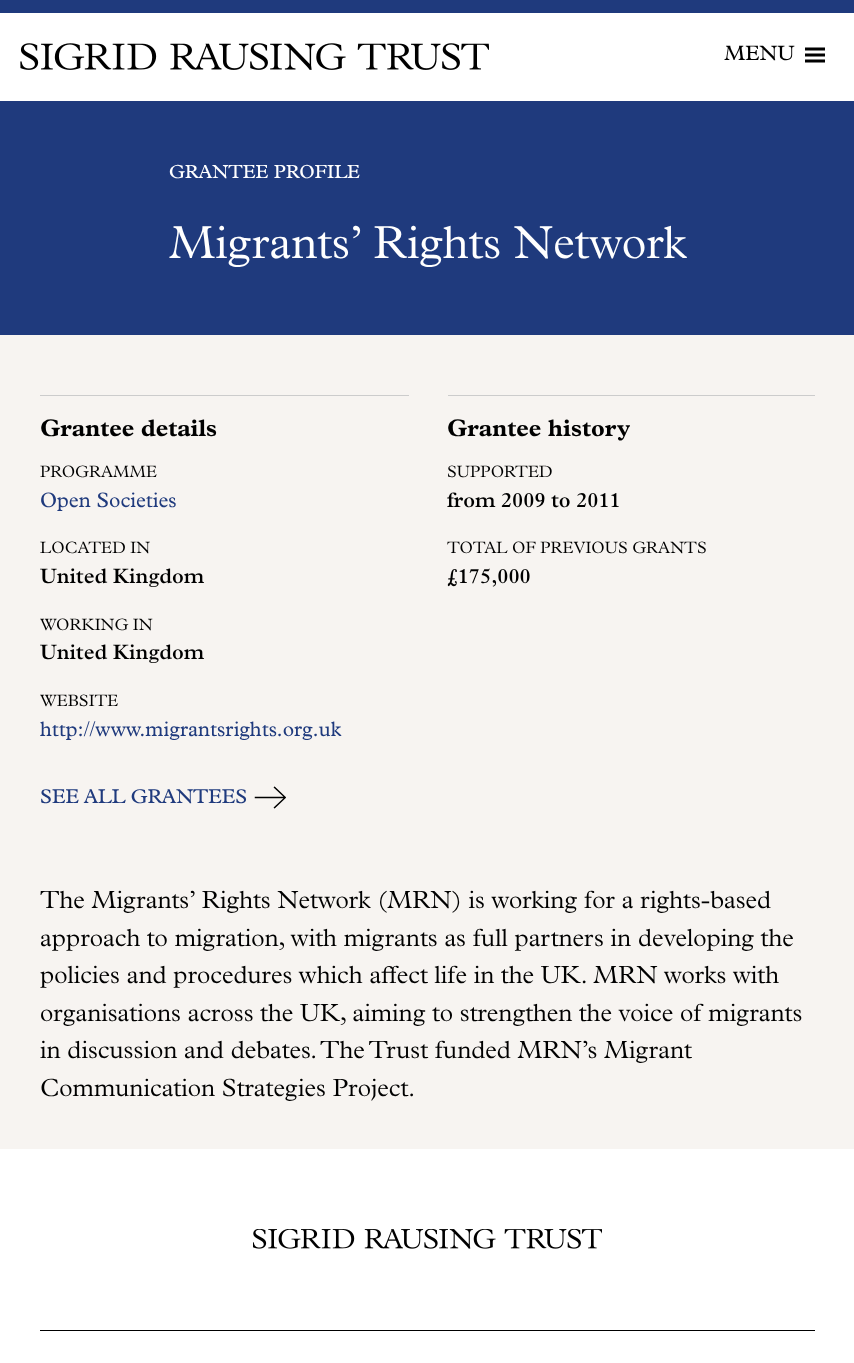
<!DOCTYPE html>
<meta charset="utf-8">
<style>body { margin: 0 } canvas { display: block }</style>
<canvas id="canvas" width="854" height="1363"></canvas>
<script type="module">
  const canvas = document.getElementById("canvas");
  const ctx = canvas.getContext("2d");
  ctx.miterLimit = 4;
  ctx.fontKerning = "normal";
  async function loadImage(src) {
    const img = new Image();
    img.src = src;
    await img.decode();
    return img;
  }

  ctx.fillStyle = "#f7f4f1";
  ctx.fillRect(0, 0, 854, 1363);
  ctx.fillStyle = "#ffffff";
  ctx.fillRect(0, 13, 854, 88);
  ctx.fillStyle = "#1f3a7d";
  ctx.fillRect(0, 0, 854, 13);
  ctx.drawImage(await loadImage("img1.png"), 20, 43, 469, 27);
  ctx.font = "21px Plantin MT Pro";
  ctx.fillStyle = "#000000";
  ctx.fillText("MENU", 724, 60);
  ctx.drawImage(await loadImage("img2.png"), 805, 47, 20, 16);
  ctx.fillStyle = "#1f3a7d";
  ctx.fillRect(0, 101, 854, 234);
  ctx.font = "19px Plantin MT Pro";
  ctx.fillStyle = "#ffffff";
  ctx.fillText("GRANTEE PROFILE", 169, 178);
  ctx.font = "300 46.4px Plantin MT Pro";
  ctx.fillText("Migrants’ Rights Network", 169, 258);
  ctx.fillStyle = "#cccccc";
  ctx.fillRect(40, 395, 369, 1);
  ctx.font = "bold 24px Plantin MT Pro";
  ctx.fillStyle = "#000000";
  ctx.fillText("Grantee details", 40, 436);
  ctx.font = "300 16.5px Plantin MT Pro";
  ctx.fillText("PROGRAMME", 40, 477);
  ctx.font = "21px Plantin MT Pro";
  ctx.fillStyle = "#1f3a7d";
  ctx.fillText("Open Societies", 40, 507);
  ctx.font = "300 16.5px Plantin MT Pro";
  ctx.fillStyle = "#000000";
  ctx.fillText("LOCATED IN", 40, 553);
  ctx.font = "600 21px Plantin MT Pro";
  ctx.fillText("United Kingdom", 40, 583);
  ctx.font = "300 16.5px Plantin MT Pro";
  ctx.fillText("WORKING IN", 40, 630);
  ctx.font = "600 21px Plantin MT Pro";
  ctx.fillText("United Kingdom", 40, 659);
  ctx.font = "300 16.5px Plantin MT Pro";
  ctx.fillText("WEBSITE", 40, 706);
  ctx.font = "21px Plantin MT Pro";
  ctx.fillStyle = "#1f3a7d";
  ctx.fillText("http://www.migrantsrights.org.uk", 40, 736);
  ctx.fillStyle = "#cccccc";
  ctx.fillRect(448, 395, 367, 1);
  ctx.font = "bold 24px Plantin MT Pro";
  ctx.fillStyle = "#000000";
  ctx.fillText("Grantee history", 447, 436);
  ctx.font = "300 16.5px Plantin MT Pro";
  ctx.fillText("SUPPORTED", 447, 477);
  ctx.font = "600 21px Plantin MT Pro";
  ctx.fillText("from 2009 to 2011", 447, 507);
  ctx.font = "300 16.5px Plantin MT Pro";
  ctx.fillText("TOTAL OF PREVIOUS GRANTS", 447, 553);
  ctx.font = "600 21px Plantin MT Pro";
  ctx.fillText("£175,000", 447, 583);
  ctx.font = "20px Plantin MT Pro";
  ctx.fillStyle = "#1f3a7d";
  ctx.fillText("SEE ALL GRANTEES", 40, 803);
  ctx.drawImage(await loadImage("img3.png"), 254, 786, 32, 23);
  ctx.font = "300 25px Plantin MT Pro";
  ctx.fillStyle = "#000000";
  ctx.fillText("The Migrants’ Rights Network (MRN) is working for a rights-based", 40, 908);
  ctx.fillText("approach to migration, with migrants as full partners in developing the", 40, 946);
  ctx.fillText("policies and procedures which affect life in the UK. MRN works with", 40, 983);
  ctx.fillText("organisations across the UK, aiming to strengthen the voice of migrants", 40, 1021);
  ctx.fillText("in discussion and debates. The Trust funded MRN’s Migrant", 40, 1058);
  ctx.fillText("Communication Strategies Project.", 40, 1096);
  ctx.fillStyle = "#ffffff";
  ctx.fillRect(0, 1149, 854, 214);
  ctx.drawImage(await loadImage("img4.png"), 253, 1229, 349, 20);
  ctx.fillStyle = "#000000";
  ctx.fillRect(40, 1330, 775, 1);
</script>
